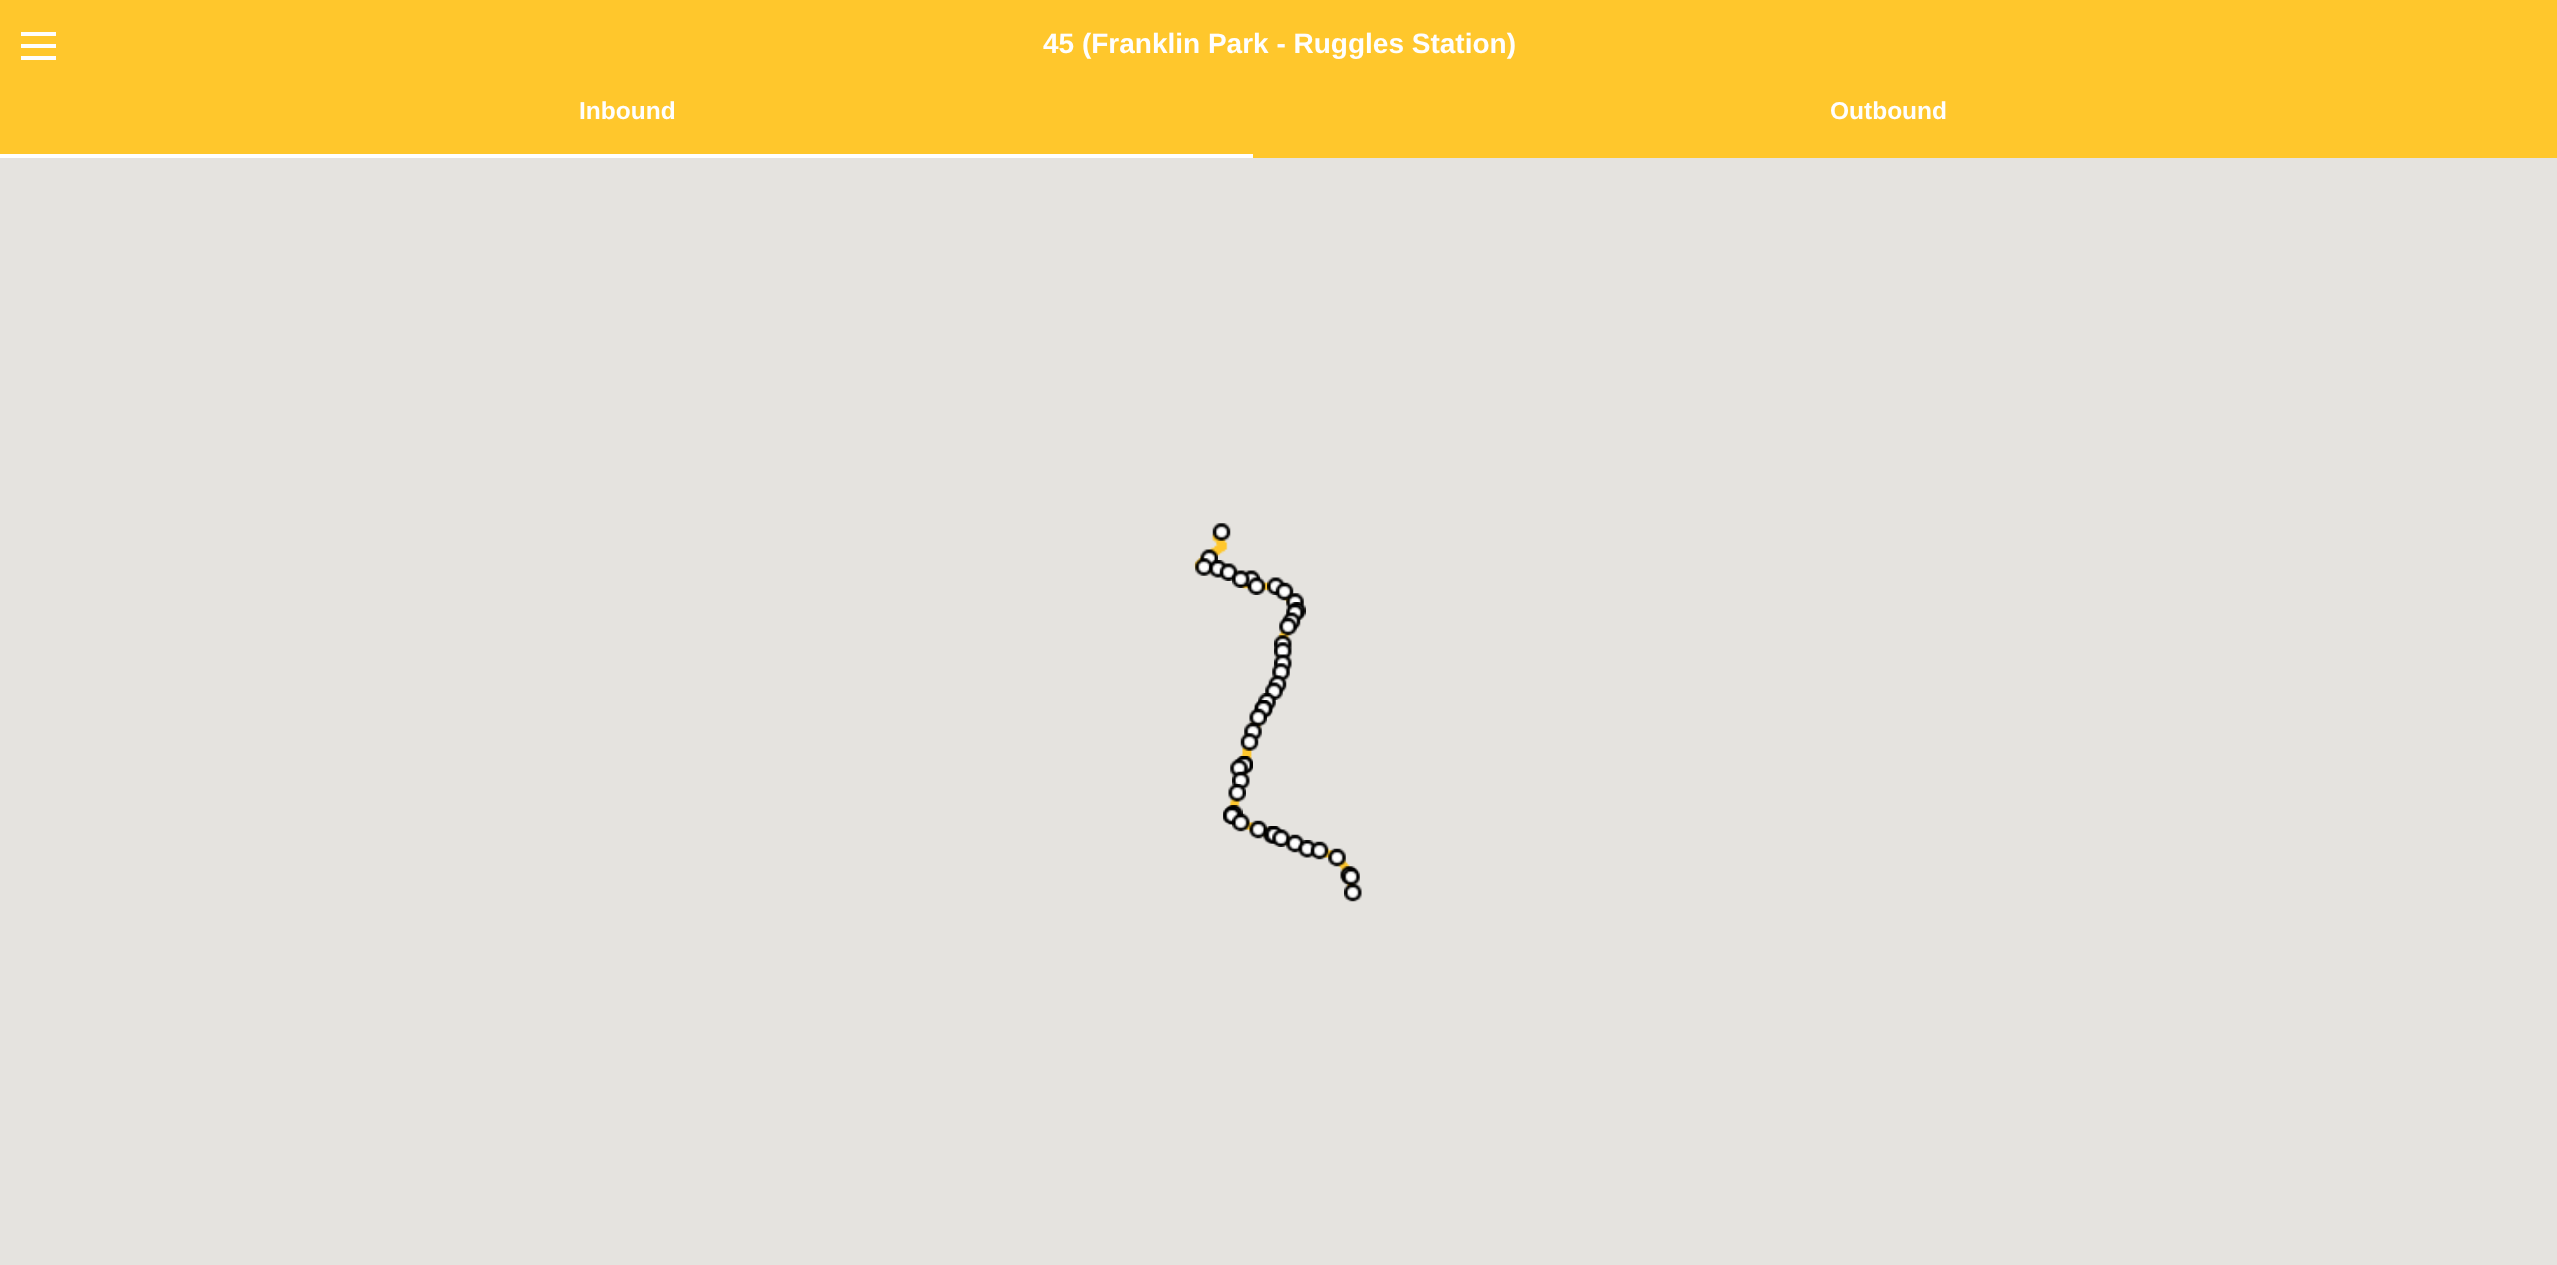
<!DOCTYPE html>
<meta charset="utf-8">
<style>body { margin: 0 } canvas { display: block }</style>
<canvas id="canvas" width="2557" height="1265"></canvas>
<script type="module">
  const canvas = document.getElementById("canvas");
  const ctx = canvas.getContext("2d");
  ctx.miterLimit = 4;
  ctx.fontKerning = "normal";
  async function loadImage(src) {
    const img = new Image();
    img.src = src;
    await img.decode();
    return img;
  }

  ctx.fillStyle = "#ffc72c";
  ctx.fillRect(0, 0, 2557, 1265);
  ctx.fillStyle = "#fefefe";
  ctx.fillRect(21, 56, 35, 4);
  ctx.fillRect(21, 44, 35, 4);
  ctx.fillRect(21, 32, 35, 4);
  ctx.font = "bold 28px Liberation Sans";
  ctx.fillText("45 (Franklin Park - Ruggles Station)", 1043, 53);
  ctx.fillStyle = "#ffffff";
  ctx.fillRect(0, 154, 1253, 4);
  ctx.font = "bold 24.5px Liberation Sans";
  ctx.fillStyle = "#fefefe";
  ctx.fillText("Inbound", 579, 119);
  ctx.fillText("Outbound", 1830, 119);
  ctx.fillStyle = "#e5e3df";
  ctx.fillRect(0, 158, 2557, 1107);
  ctx.drawImage(await loadImage("img48.png"), 1193, 530, 106, 298);
  ctx.drawImage(await loadImage("img1.png"), 1212, 523, 19, 18);
  ctx.drawImage(await loadImage("img2.png"), 1200, 549, 18, 18);
  ctx.drawImage(await loadImage("img3.png"), 1195, 558, 18, 18);
  ctx.drawImage(await loadImage("img4.png"), 1209, 560, 18, 18);
  ctx.drawImage(await loadImage("img5.png"), 1219, 563, 19, 18);
  ctx.drawImage(await loadImage("img7.png"), 1243, 570, 17, 18);
  ctx.drawImage(await loadImage("img6.png"), 1232, 570, 18, 18);
  ctx.drawImage(await loadImage("img8.png"), 1247, 577, 19, 18);
  ctx.drawImage(await loadImage("img9.png"), 1267, 577, 18, 18);
  ctx.drawImage(await loadImage("img10.png"), 1275, 582, 19, 19);
  ctx.drawImage(await loadImage("img11.png"), 1286, 593, 18, 17);
  ctx.drawImage(await loadImage("img12.png"), 1288, 602, 18, 18);
  ctx.drawImage(await loadImage("img13.png"), 1286, 603, 18, 19);
  ctx.drawImage(await loadImage("img14.png"), 1282, 612, 19, 18);
  ctx.drawImage(await loadImage("img15.png"), 1279, 617, 18, 19);
  ctx.drawImage(await loadImage("img16.png"), 1274, 635, 18, 17);
  ctx.drawImage(await loadImage("img17.png"), 1274, 642, 18, 17);
  ctx.drawImage(await loadImage("img18.png"), 1274, 654, 18, 18);
  ctx.drawImage(await loadImage("img19.png"), 1272, 663, 18, 18);
  ctx.drawImage(await loadImage("img20.png"), 1268, 675, 19, 18);
  ctx.drawImage(await loadImage("img21.png"), 1265, 682, 18, 18);
  ctx.drawImage(await loadImage("img22.png"), 1258, 693, 18, 18);
  ctx.drawImage(await loadImage("img23.png"), 1254, 700, 19, 18);
  ctx.drawImage(await loadImage("img24.png"), 1254, 700, 19, 18);
  ctx.drawImage(await loadImage("img25.png"), 1249, 708, 18, 19);
  ctx.drawImage(await loadImage("img26.png"), 1244, 722, 18, 19);
  ctx.drawImage(await loadImage("img27.png"), 1240, 733, 19, 18);
  ctx.drawImage(await loadImage("img28.png"), 1235, 756, 18, 18);
  ctx.drawImage(await loadImage("img29.png"), 1235, 756, 18, 18);
  ctx.drawImage(await loadImage("img30.png"), 1230, 759, 18, 18);
  ctx.drawImage(await loadImage("img31.png"), 1232, 771, 18, 19);
  ctx.drawImage(await loadImage("img32.png"), 1228, 784, 18, 18);
  ctx.drawImage(await loadImage("img33.png"), 1225, 805, 18, 18);
  ctx.drawImage(await loadImage("img34.png"), 1223, 806, 18, 19);
  ctx.drawImage(await loadImage("img35.png"), 1223, 806, 18, 19);
  ctx.drawImage(await loadImage("img49.png"), 1244, 827, 111, 61);
  ctx.drawImage(await loadImage("img36.png"), 1232, 813, 18, 19);
  ctx.drawImage(await loadImage("img37.png"), 1249, 820, 18, 19);
  ctx.drawImage(await loadImage("img38.png"), 1263, 826, 18, 18);
  ctx.drawImage(await loadImage("img39.png"), 1265, 826, 18, 18);
  ctx.drawImage(await loadImage("img40.png"), 1272, 829, 18, 18);
  ctx.drawImage(await loadImage("img41.png"), 1286, 834, 18, 19);
  ctx.drawImage(await loadImage("img42.png"), 1298, 840, 18, 18);
  ctx.drawImage(await loadImage("img43.png"), 1310, 841, 19, 19);
  ctx.drawImage(await loadImage("img44.png"), 1328, 848, 18, 19);
  ctx.drawImage(await loadImage("img45.png"), 1340, 866, 18, 18);
  ctx.drawImage(await loadImage("img46.png"), 1342, 868, 18, 18);
  ctx.drawImage(await loadImage("img47.png"), 1344, 883, 18, 19);
</script>
